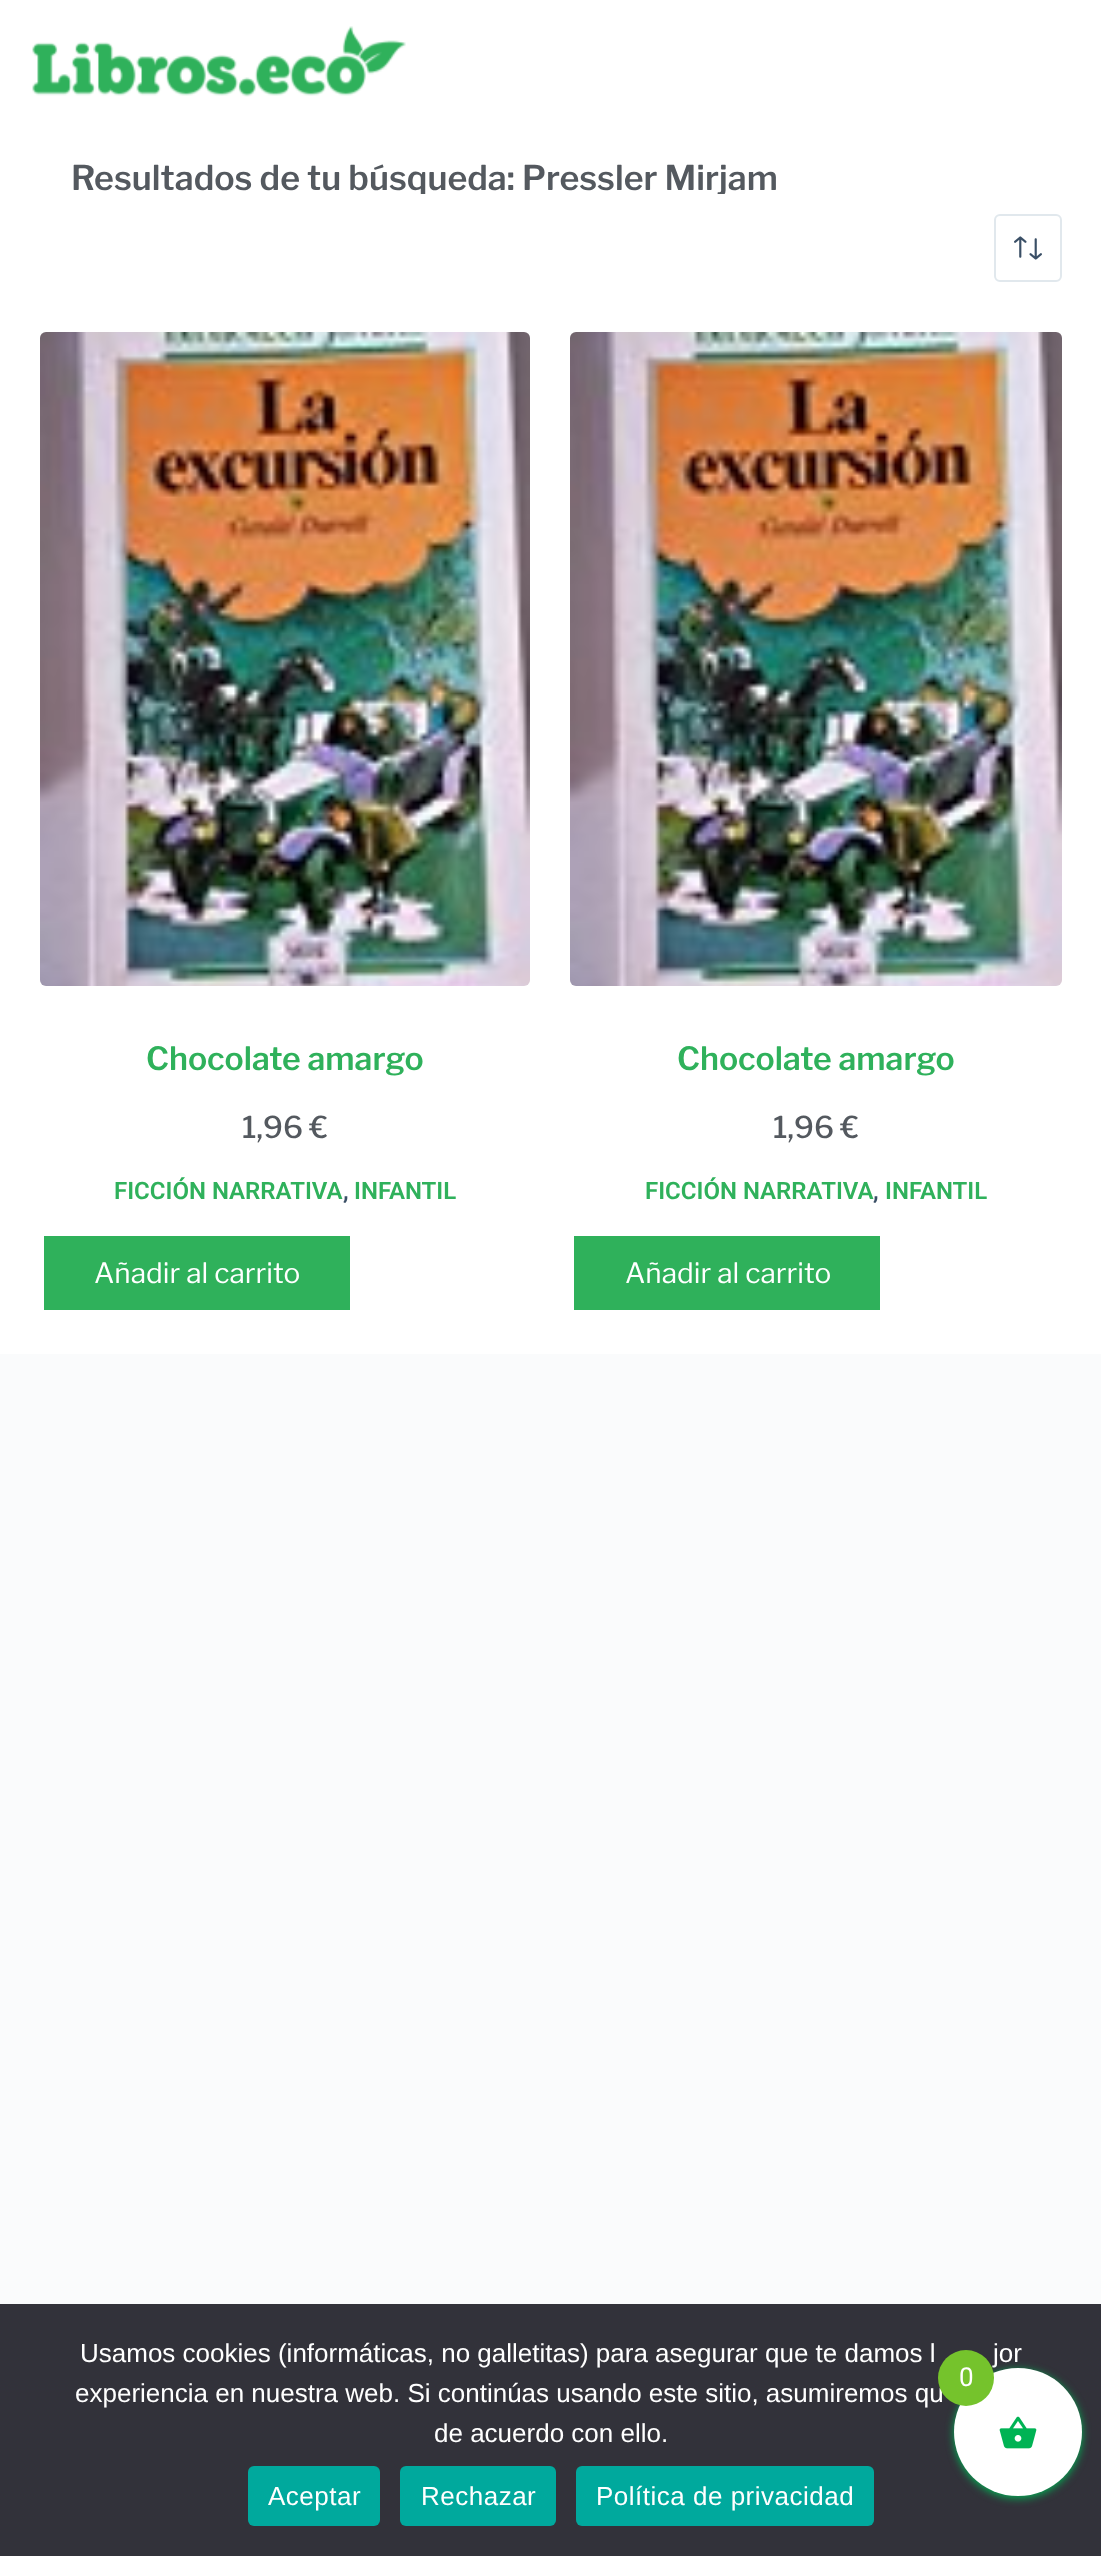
<!DOCTYPE html>
<meta charset="utf-8">
<style>body { margin: 0 } canvas { display: block }</style>
<canvas id="canvas" width="1101" height="2556"></canvas>
<script type="module">
  const canvas = document.getElementById("canvas");
  const ctx = canvas.getContext("2d");
  ctx.miterLimit = 4;
  ctx.fontKerning = "normal";
  async function loadImage(src) {
    const img = new Image();
    img.src = src;
    await img.decode();
    return img;
  }

  ctx.fillStyle = "#fafbfc";
  ctx.fillRect(0, 0, 1101, 2556);
  ctx.fillStyle = "#ffffff";
  ctx.fillRect(0, 0, 1101, 1354);
  ctx.drawImage(await loadImage("img1.png"), 32, 26, 374, 71);
  ctx.font = "600 34px Libre Franklin";
  ctx.fillStyle = "#54595f";
  ctx.fillText("Resultados de tu búsqueda: Pressler Mirjam", 71, 190);
  ctx.fillStyle = "#ffffff";
  ctx.fillRect(420, 194, 305, 2);
  ctx.beginPath();
  ctx.roundRect(995, 215, 66, 66, 5);
  ctx.strokeStyle = "#e1e8ed";
  ctx.lineWidth = 2;
  ctx.stroke();
  ctx.drawImage(await loadImage("img2.png"), 1014, 236, 28, 24);
  ctx.drawImage(await loadImage("img3.png"), 40, 332, 490, 654);
  ctx.font = "600 32px Libre Franklin";
  ctx.fillStyle = "#2fb15b";
  ctx.fillText("Chocolate amargo", 146, 1070);
  ctx.font = "500 30px Libre Franklin";
  ctx.fillStyle = "#54595f";
  ctx.fillText("1,96 €", 242, 1138);
  ctx.font = "600 24px Roboto";
  ctx.fillStyle = "#2fb15b";
  ctx.fillText("FICCIÓN NARRATIVA", 114, 1199);
  ctx.fillStyle = "#3a4f66";
  ctx.fillText(",", 343, 1199);
  ctx.fillStyle = "#2fb15b";
  ctx.fillText("INFANTIL", 354, 1199);
  ctx.fillRect(44, 1236, 306, 74);
  ctx.font = "28px Libre Franklin";
  ctx.fillStyle = "#ffffff";
  ctx.fillText("Añadir al carrito", 94, 1283);
  ctx.drawImage(await loadImage("img4.png"), 570, 332, 492, 654);
  ctx.font = "600 32px Libre Franklin";
  ctx.fillStyle = "#2fb15b";
  ctx.fillText("Chocolate amargo", 677, 1070);
  ctx.font = "500 30px Libre Franklin";
  ctx.fillStyle = "#54595f";
  ctx.fillText("1,96 €", 773, 1138);
  ctx.font = "600 24px Roboto";
  ctx.fillStyle = "#2fb15b";
  ctx.fillText("FICCIÓN NARRATIVA", 645, 1199);
  ctx.fillStyle = "#3a4f66";
  ctx.fillText(",", 873, 1199);
  ctx.fillStyle = "#2fb15b";
  ctx.fillText("INFANTIL", 885, 1199);
  ctx.fillRect(574, 1236, 306, 74);
  ctx.font = "28px Libre Franklin";
  ctx.fillStyle = "#ffffff";
  ctx.fillText("Añadir al carrito", 625, 1283);
  ctx.fillStyle = "#32323a";
  ctx.fillRect(0, 2304, 1101, 252);
  ctx.font = "26px Liberation Sans";
  ctx.fillStyle = "#ffffff";
  ctx.fillText("Usamos cookies (informáticas, no galletitas) para asegurar que te damos l", 80, 2362);
  ctx.fillText("jor", 993, 2362);
  ctx.fillText("experiencia en nuestra web. Si continúas usando este sitio, asumiremos qu", 75, 2402);
  ctx.fillText("de acuerdo con ello.", 434, 2442);
  ctx.fillStyle = "#00a99d";
  ctx.beginPath();
  ctx.roundRect(248, 2466, 132, 60, 6);
  ctx.fill();
  ctx.letterSpacing = "0.5px";
  ctx.fillStyle = "#ffffff";
  ctx.fillText("Aceptar", 268, 2505);
  ctx.fillStyle = "#00a99d";
  ctx.beginPath();
  ctx.roundRect(400, 2466, 156, 60, 6);
  ctx.fill();
  ctx.fillStyle = "#ffffff";
  ctx.fillText("Rechazar", 421, 2505);
  ctx.fillStyle = "#00a99d";
  ctx.beginPath();
  ctx.roundRect(576, 2466, 298, 60, 6);
  ctx.fill();
  ctx.fillStyle = "#ffffff";
  ctx.fillText("Política de privacidad", 596, 2505);
  ctx.fillStyle = "#00b354";
  ctx.filter = "blur(4px)";
  ctx.beginPath();
  ctx.roundRect(954, 2370, 128, 128, 64);
  ctx.fill();
  ctx.filter = "none";
  ctx.fillStyle = "#ffffff";
  ctx.beginPath();
  ctx.arc(1018, 2432, 64, 0, Math.PI * 2);
  ctx.fill();
  ctx.fillStyle = "#75c32c";
  ctx.beginPath();
  ctx.arc(966, 2378, 28, 0, Math.PI * 2);
  ctx.fill();
  ctx.letterSpacing = "0px";
  ctx.font = "26px Roboto";
  ctx.fillStyle = "#ffffff";
  ctx.fillText("0", 959, 2386);
  ctx.drawImage(await loadImage("img5.png"), 999, 2416, 38, 33);
</script>
